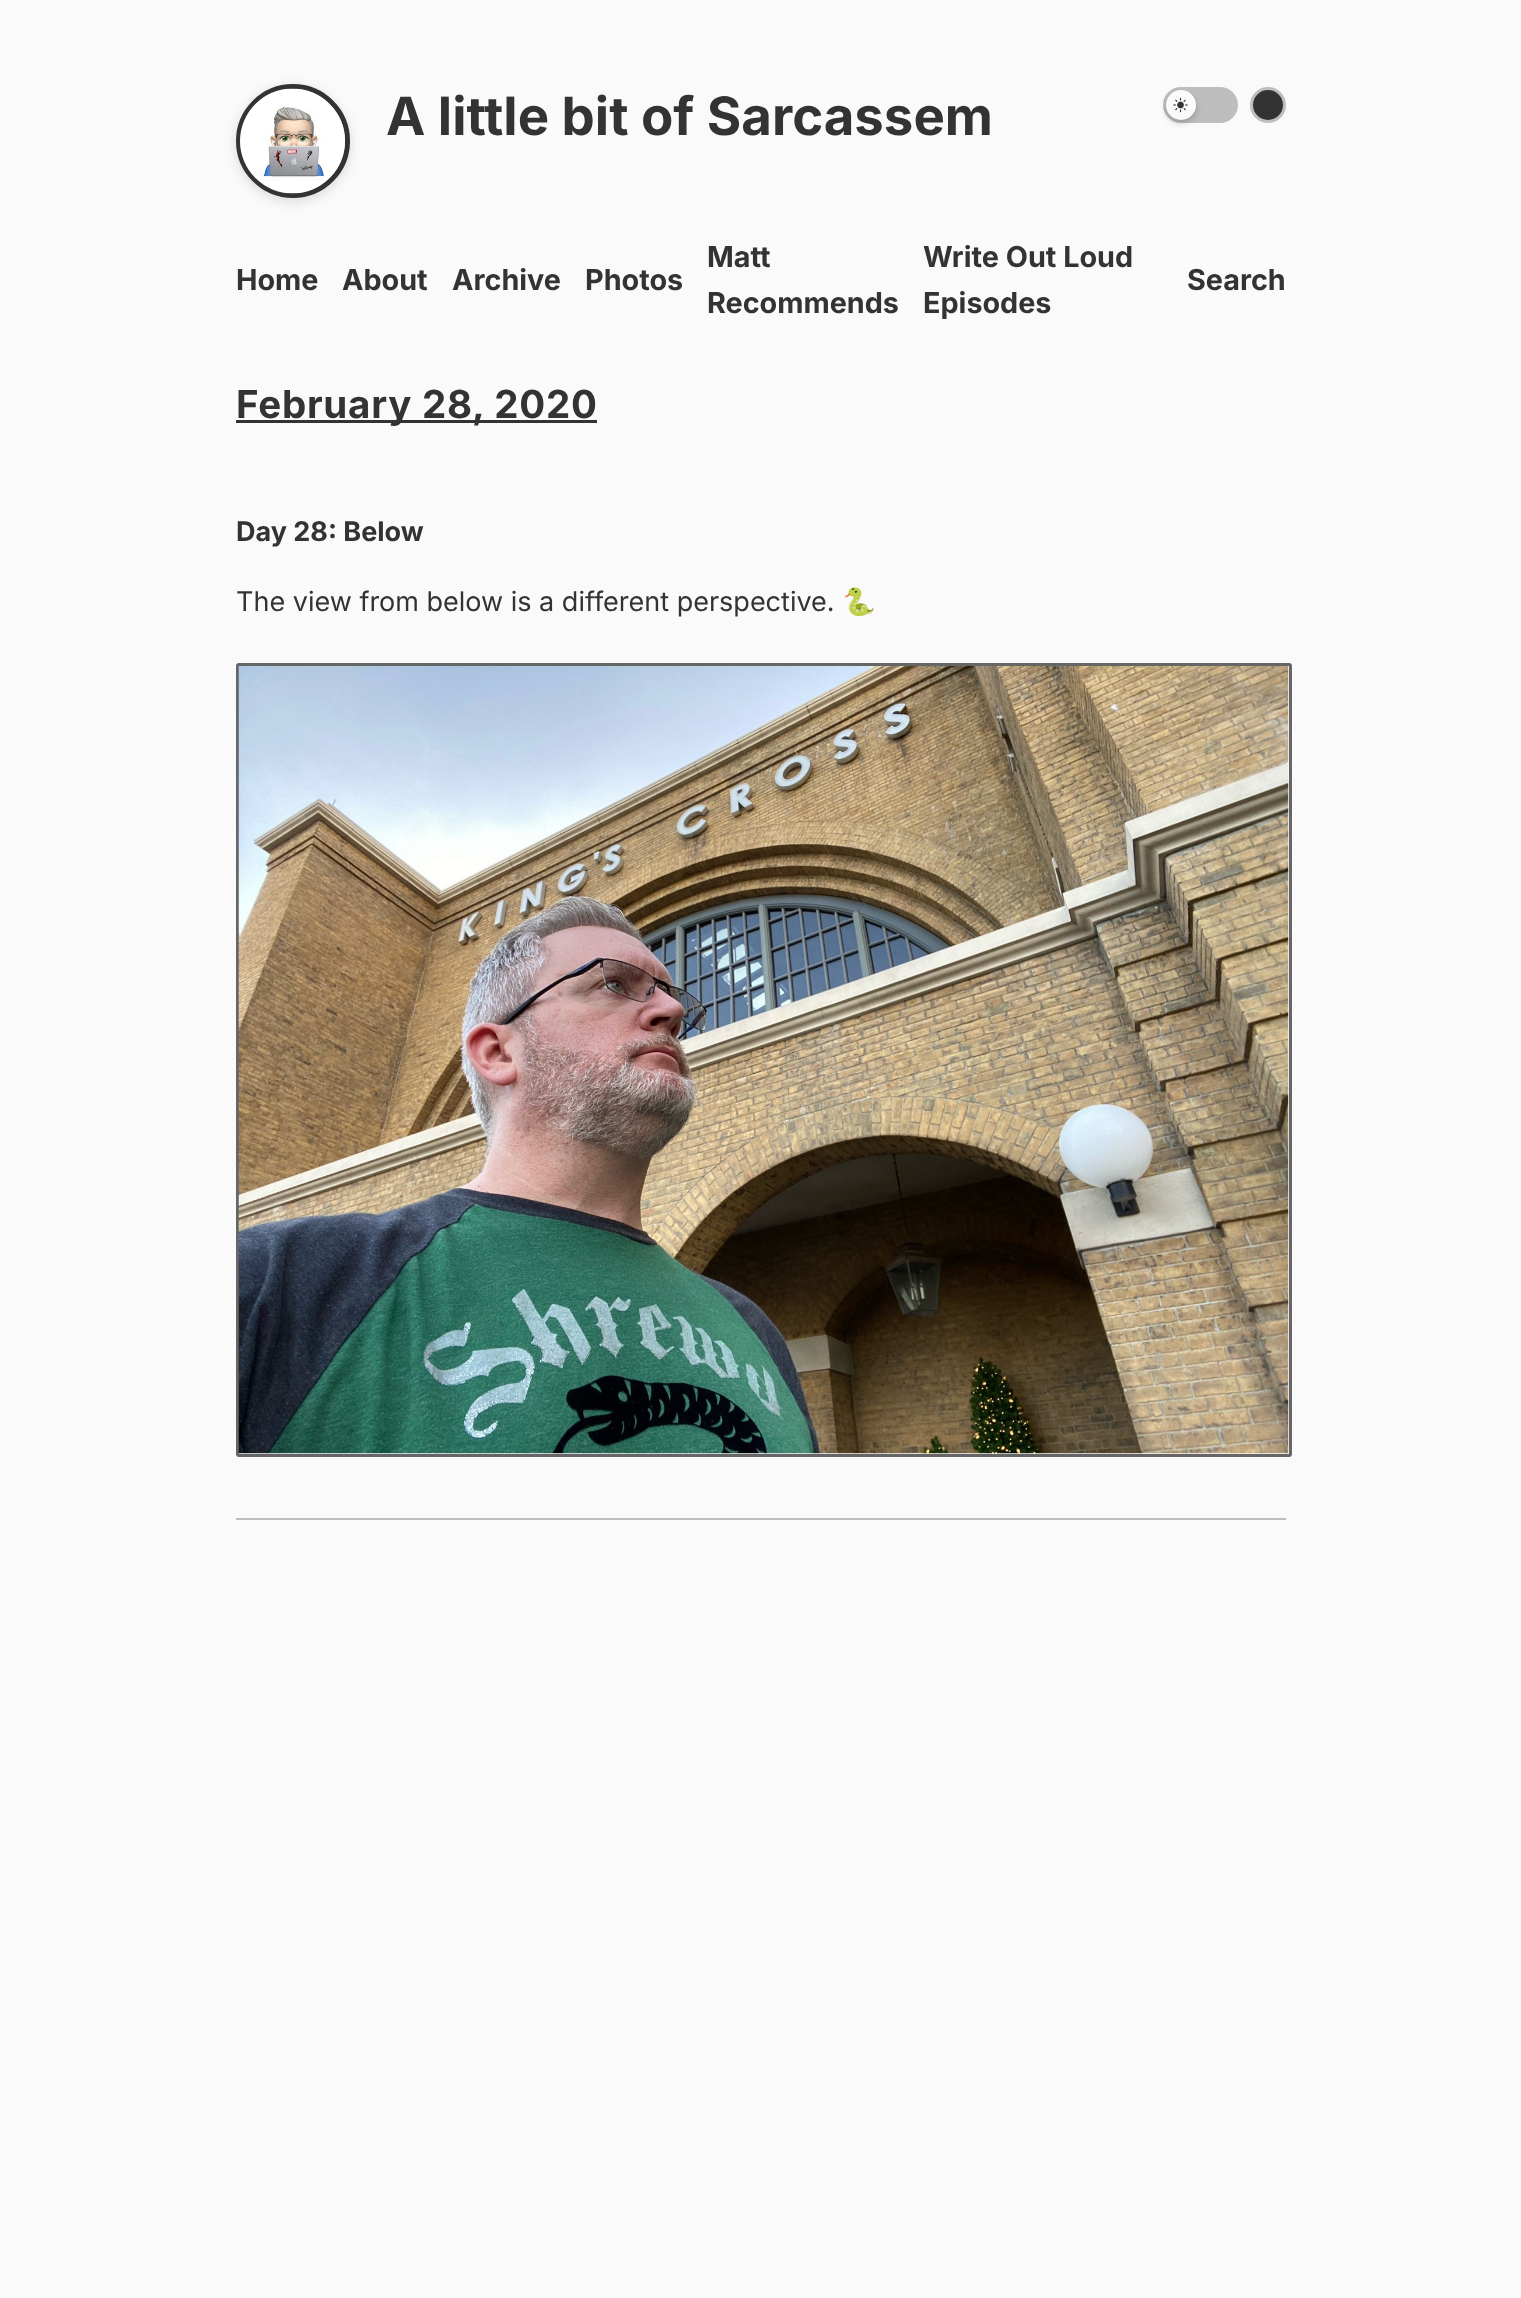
<!DOCTYPE html>
<meta charset="utf-8">
<style>body { margin: 0 } canvas { display: block }</style>
<canvas id="canvas" width="1521" height="2298"></canvas>
<script type="module">
  const canvas = document.getElementById("canvas");
  const ctx = canvas.getContext("2d");
  ctx.miterLimit = 4;
  ctx.fontKerning = "normal";
  async function loadImage(src) {
    const img = new Image();
    img.src = src;
    await img.decode();
    return img;
  }

  ctx.fillStyle = "#fafafa";
  ctx.fillRect(0, 0, 1521, 2298);
  ctx.fillStyle = "rgba(75, 85, 99, 0.2)";
  ctx.filter = "blur(6px)";
  ctx.beginPath();
  ctx.roundRect(236, 87, 114, 114, 57);
  ctx.fill();
  ctx.filter = "none";
  ctx.beginPath();
  ctx.arc(293, 141, 54.5, 0, Math.PI * 2);
  ctx.strokeStyle = "#333333";
  ctx.lineWidth = 5;
  ctx.stroke();
  ctx.drawImage(await loadImage("img1.png"), 240, 88, 105, 106);
  ctx.font = "bold 52.75px Inter";
  ctx.fillStyle = "#333333";
  ctx.fillText("A little bit of Sarcassem", 386, 135);
  ctx.fillStyle = "#bebebe";
  ctx.beginPath();
  ctx.roundRect(1163, 87, 75, 36, 18);
  ctx.fill();
  ctx.fillStyle = "rgba(0, 0, 0, 0.2)";
  ctx.filter = "blur(3px)";
  ctx.beginPath();
  ctx.roundRect(1166, 93, 30, 30, 15);
  ctx.fill();
  ctx.filter = "none";
  ctx.fillStyle = "#fafafa";
  ctx.beginPath();
  ctx.arc(1181, 105, 15, 0, Math.PI * 2);
  ctx.fill();
  ctx.drawImage(await loadImage("img2.png"), 1173, 97, 15, 16);
  ctx.fillStyle = "#333333";
  ctx.beginPath();
  ctx.arc(1268, 105, 16.5, 0, Math.PI * 2);
  ctx.fill();
  ctx.strokeStyle = "#bebebe";
  ctx.lineWidth = 3;
  ctx.stroke();
  ctx.font = "bold 28.75px Inter";
  ctx.fillText("Home", 236, 290);
  ctx.fillText("About", 342, 290);
  ctx.fillText("Archive", 452, 290);
  ctx.fillText("Photos", 585, 290);
  ctx.fillText("Matt", 707, 267);
  ctx.fillText("Recommends", 707, 313);
  ctx.fillText("Write Out Loud", 923, 267);
  ctx.fillText("Episodes", 923, 313);
  ctx.fillText("Search", 1187, 290);
  ctx.fillStyle = "#bebebe";
  ctx.fillRect(236, 1518, 1050, 2);
  ctx.fillStyle = "#333333";
  ctx.fillRect(236, 420, 361, 3);
  ctx.letterSpacing = "0.75px";
  ctx.font = "bold 38.5px Inter";
  ctx.fillText("February 28, 2020", 236, 418);
  ctx.letterSpacing = "0px";
  ctx.font = "bold 27px Inter";
  ctx.fillText("Day 28: Below", 236, 541);
  ctx.font = "27px Inter";
  ctx.fillText("The view from below is a different perspective.", 236, 611);
  ctx.font = "27px Noto Color Emoji";
  ctx.fillText("🐍", 842, 611);
  ctx.beginPath();
  ctx.roundRect(237.5, 664.5, 1053, 791, 1.5);
  ctx.strokeStyle = "#666666";
  ctx.stroke();
  ctx.drawImage(await loadImage("img3.png"), 238, 666, 1051, 788);
</script>
